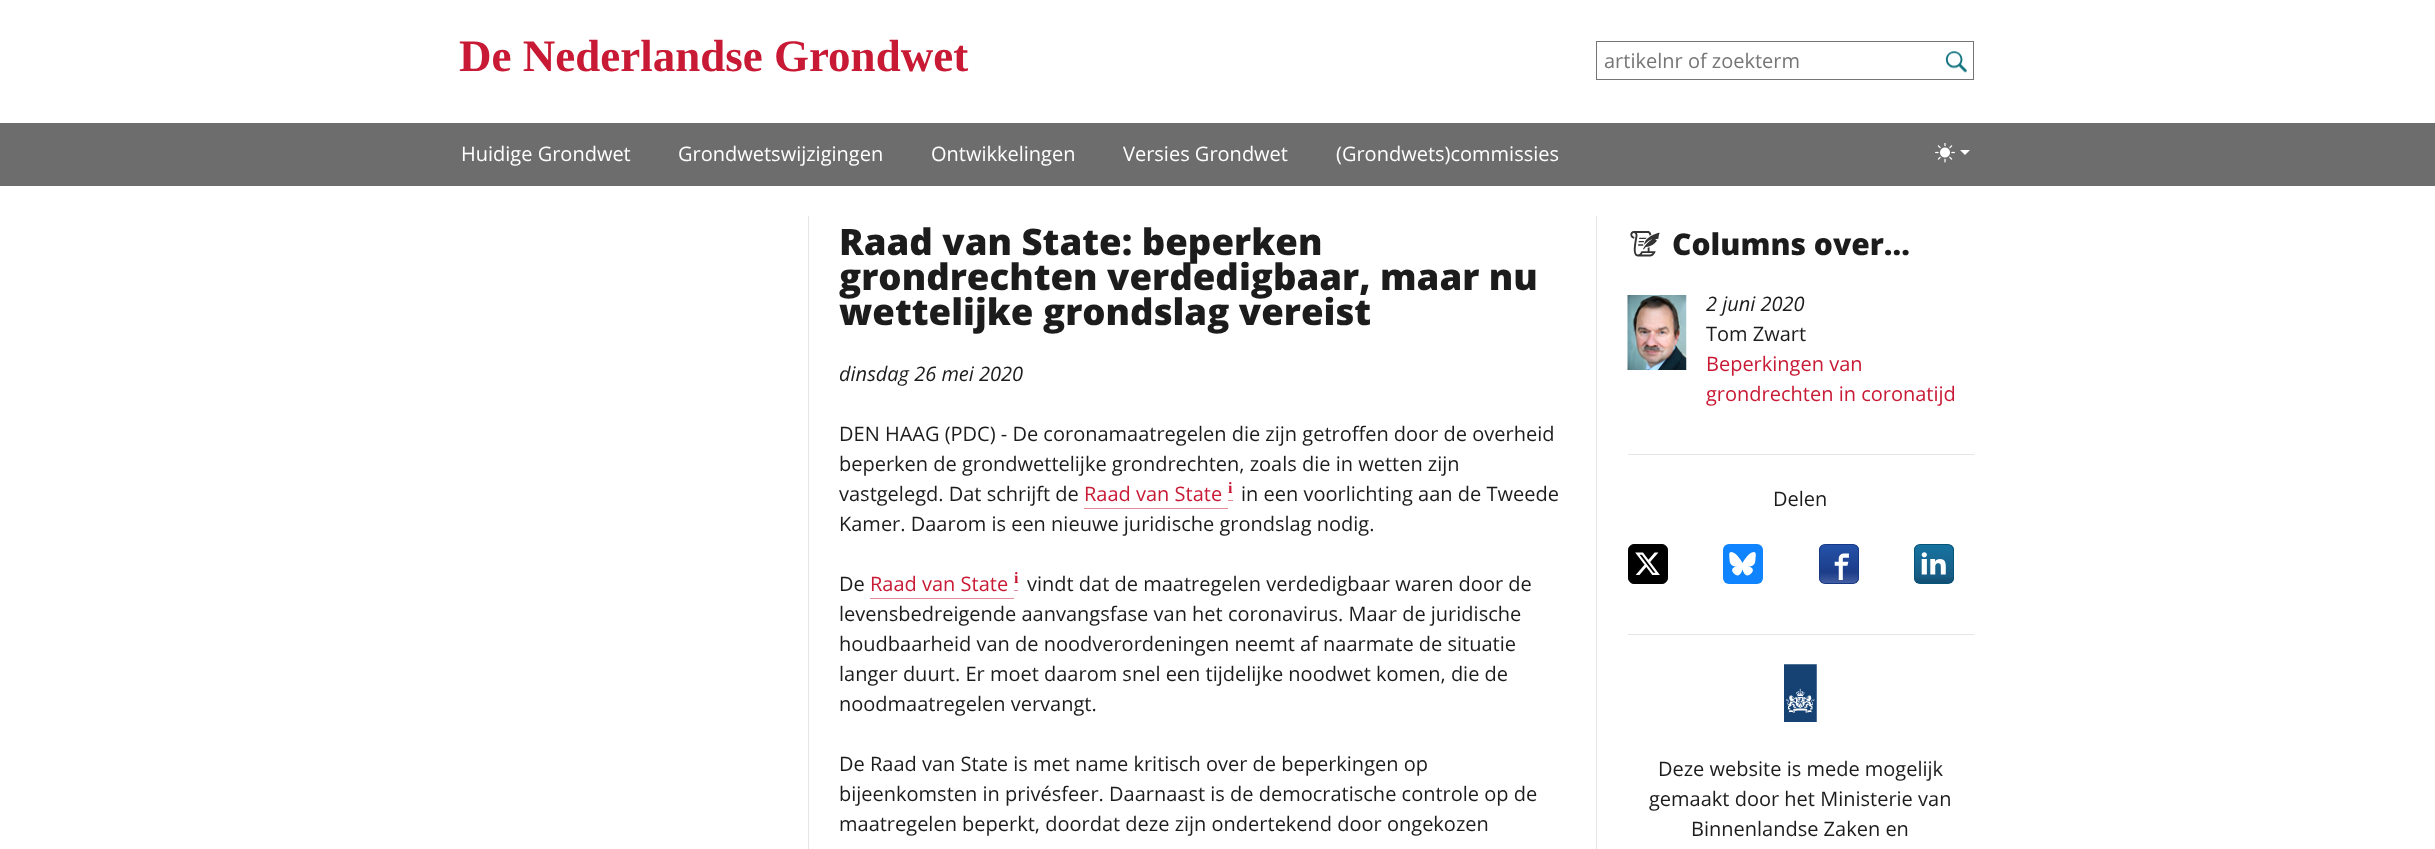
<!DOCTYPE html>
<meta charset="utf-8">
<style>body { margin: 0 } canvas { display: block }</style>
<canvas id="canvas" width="2435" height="849"></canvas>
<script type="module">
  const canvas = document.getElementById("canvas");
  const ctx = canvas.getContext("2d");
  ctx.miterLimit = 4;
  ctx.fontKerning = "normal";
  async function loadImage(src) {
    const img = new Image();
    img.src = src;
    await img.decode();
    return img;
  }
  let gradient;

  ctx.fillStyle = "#ffffff";
  ctx.fillRect(0, 0, 2435, 849);
  ctx.font = "bold 45px Liberation Serif";
  ctx.fillStyle = "#c91a35";
  ctx.fillText("De Nederlandse Grondwet", 459, 71);
  ctx.strokeStyle = "#757575";
  ctx.strokeRect(1596.5, 41.5, 377, 38);
  ctx.font = "20px Open Sans";
  ctx.fillStyle = "#767676";
  ctx.fillText("artikelnr of zoekterm", 1604, 68);
  ctx.drawImage(await loadImage("img1.png"), 1945, 51, 22, 22);
  ctx.fillStyle = "#6d6d6d";
  ctx.fillRect(0, 123, 2435, 63);
  ctx.drawImage(await loadImage("img2.png"), 1935, 143, 20, 20);
  ctx.fillStyle = "#ffffff";
  ctx.beginPath();
  ctx.moveTo(1960, 150);
  ctx.lineTo(1970, 150);
  ctx.lineTo(1965, 155);
  ctx.closePath();
  ctx.fill();
  ctx.fillText("Huidige Grondwet", 461, 161);
  ctx.fillText("Grondwetswijzigingen", 678, 161);
  ctx.fillText("Ontwikkelingen", 931, 161);
  ctx.fillText("Versies Grondwet", 1123, 161);
  ctx.fillText("(Grondwets)commissies", 1336, 161);
  ctx.fillStyle = "#e5e5e7";
  ctx.fillRect(808, 216, 1, 633);
  ctx.font = "800 36.6px Open Sans";
  ctx.fillStyle = "#1c1c1c";
  ctx.fillText("Raad van State: beperken", 839, 255);
  ctx.fillText("grondrechten verdedigbaar, maar nu", 839, 290);
  ctx.fillText("wettelijke grondslag vereist", 839, 325);
  ctx.font = "italic 20px Open Sans";
  ctx.fillText("dinsdag 26 mei 2020", 839, 381);
  ctx.font = "20px Open Sans";
  ctx.fillText("DEN HAAG (PDC) - De coronamaatregelen die zijn getroffen door de overheid", 839, 441);
  ctx.fillText("beperken de grondwettelijke grondrechten, zoals die in wetten zijn", 839, 471);
  ctx.fillText("vastgelegd. Dat schrijft de", 839, 501);
  ctx.fillStyle = "#c91a35";
  ctx.fillText("Raad van State", 1084, 501);
  ctx.fillStyle = "#e48d9a";
  ctx.fillRect(1084, 508, 144, 1);
  ctx.fillRect(1228, 500, 5, 1);
  ctx.font = "bold 16px Liberation Serif";
  ctx.fillStyle = "#c91a35";
  ctx.fillText("i", 1228, 493);
  ctx.font = "20px Open Sans";
  ctx.fillStyle = "#1c1c1c";
  ctx.fillText("in een voorlichting aan de Tweede", 1241, 501);
  ctx.fillText("Kamer. Daarom is een nieuwe juridische grondslag nodig.", 839, 531);
  ctx.fillText("De", 839, 591);
  ctx.fillStyle = "#c91a35";
  ctx.fillText("Raad van State", 870, 591);
  ctx.fillStyle = "#e48d9a";
  ctx.fillRect(870, 598, 144, 1);
  ctx.fillRect(1014, 590, 4, 1);
  ctx.font = "bold 16px Liberation Serif";
  ctx.fillStyle = "#c91a35";
  ctx.fillText("i", 1014, 583);
  ctx.font = "20px Open Sans";
  ctx.fillStyle = "#1c1c1c";
  ctx.fillText("vindt dat de maatregelen verdedigbaar waren door de", 1027, 591);
  ctx.fillText("levensbedreigende aanvangsfase van het coronavirus. Maar de juridische", 839, 621);
  ctx.fillText("houdbaarheid van de noodverordeningen neemt af naarmate de situatie", 839, 651);
  ctx.fillText("langer duurt. Er moet daarom snel een tijdelijke noodwet komen, die de", 839, 681);
  ctx.fillText("noodmaatregelen vervangt.", 839, 711);
  ctx.fillText("De Raad van State is met name kritisch over de beperkingen op", 839, 771);
  ctx.fillText("bijeenkomsten in privésfeer. Daarnaast is de democratische controle op de", 839, 801);
  ctx.fillText("maatregelen beperkt, doordat deze zijn ondertekend door ongekozen", 839, 831);
  ctx.fillStyle = "#e5e5e7";
  ctx.fillRect(1596, 216, 1, 633);
  ctx.drawImage(await loadImage("img3.png"), 1630, 231, 30, 26);
  ctx.font = "800 30px Open Sans";
  ctx.fillStyle = "#1c1c1c";
  ctx.fillText("Columns over...", 1672, 255);
  ctx.drawImage(await loadImage("img4.png"), 1627, 295, 60, 75);
  ctx.font = "italic 20px Open Sans";
  ctx.fillText("2 juni 2020", 1706, 311);
  ctx.font = "20px Open Sans";
  ctx.fillText("Tom Zwart", 1706, 341);
  ctx.fillStyle = "#c91a35";
  ctx.fillText("Beperkingen van", 1706, 371);
  ctx.fillText("grondrechten in coronatijd", 1706, 401);
  ctx.fillStyle = "#e5e5e7";
  ctx.fillRect(1628, 454, 346, 1);
  ctx.fillStyle = "#1c1c1c";
  ctx.fillText("Delen", 1773, 506);
  ctx.fillStyle = "#000000";
  ctx.beginPath();
  ctx.roundRect(1628.5, 544.5, 39, 39, 5.5);
  ctx.fill();
  ctx.strokeStyle = "#000000";
  ctx.stroke();
  ctx.drawImage(await loadImage("img5.png"), 1635, 552, 25, 23);
  ctx.fillStyle = "#1083fe";
  ctx.beginPath();
  ctx.roundRect(1723, 544, 40, 40, 6);
  ctx.fill();
  ctx.drawImage(await loadImage("img6.png"), 1729, 552, 27, 24);
  ctx.save();
  ctx.beginPath();
  ctx.roundRect(1819, 544, 40, 40, 6);
  ctx.clip();
  gradient = ctx.createLinearGradient(1839, 545, 1839, 583);
  gradient.addColorStop(0, "#2452a8");
  gradient.addColorStop(0.72, "#1c3d89");
  gradient.addColorStop(1, "#445ea0");
  ctx.fillStyle = gradient;
  ctx.fillRect(1819, 545, 40, 38);
  ctx.restore();
  ctx.beginPath();
  ctx.roundRect(1819.5, 544.5, 39, 39, 5.5);
  ctx.strokeStyle = "#163a87";
  ctx.stroke();
  ctx.drawImage(await loadImage("img7.png"), 1834, 553, 15, 27);
  ctx.save();
  ctx.beginPath();
  ctx.roundRect(1914, 544, 40, 40, 6);
  ctx.clip();
  gradient = ctx.createLinearGradient(1934, 545, 1934, 583);
  gradient.addColorStop(0, "#1773a0");
  gradient.addColorStop(0.82, "#175c84");
  gradient.addColorStop(1, "#124c72");
  ctx.fillStyle = gradient;
  ctx.fillRect(1914, 545, 40, 38);
  ctx.restore();
  ctx.beginPath();
  ctx.roundRect(1914.5, 544.5, 39, 39, 5.5);
  ctx.strokeStyle = "#075479";
  ctx.stroke();
  ctx.drawImage(await loadImage("img8.png"), 1921, 552, 25, 23);
  ctx.fillStyle = "#e5e5e7";
  ctx.fillRect(1628, 634, 346, 1);
  ctx.drawImage(await loadImage("img9.png"), 1784, 664, 33, 58);
  ctx.fillStyle = "#1c1c1c";
  ctx.fillText("Deze website is mede mogelijk", 1658, 776);
  ctx.fillText("gemaakt door het Ministerie van", 1649, 806);
  ctx.fillText("Binnenlandse Zaken en", 1691, 836);
</script>
